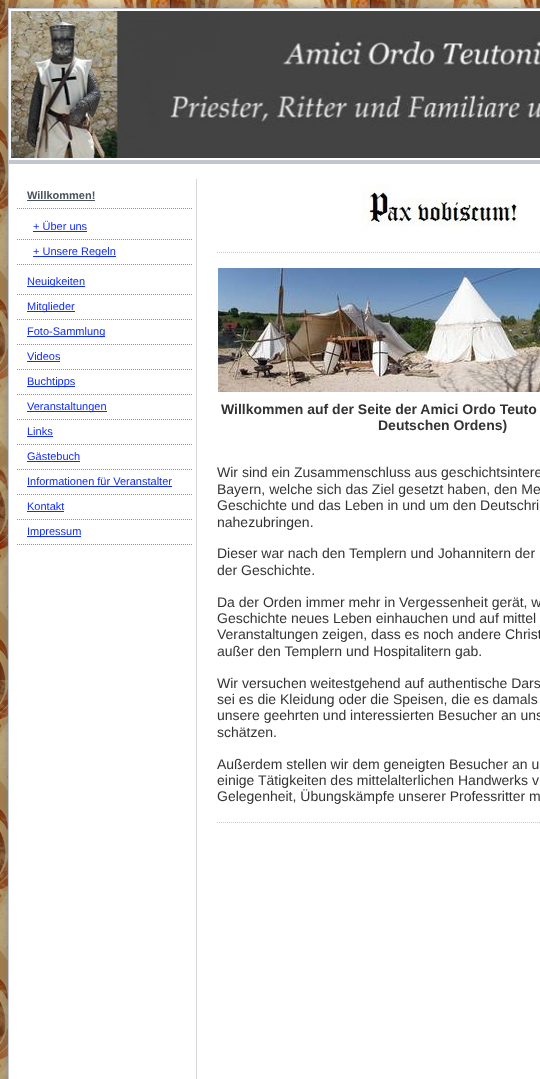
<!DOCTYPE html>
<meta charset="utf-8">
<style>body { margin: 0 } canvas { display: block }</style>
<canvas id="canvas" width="540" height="1079"></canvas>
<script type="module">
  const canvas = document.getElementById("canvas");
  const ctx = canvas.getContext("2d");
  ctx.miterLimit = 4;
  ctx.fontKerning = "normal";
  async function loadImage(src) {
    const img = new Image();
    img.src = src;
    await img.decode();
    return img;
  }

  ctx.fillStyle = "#ffffff";
  ctx.fillRect(0, 0, 540, 1079);
  ctx.drawImage(await loadImage("img1.png"), 0, 0, 540, 1079);
  ctx.drawImage(await loadImage("img2.png"), 1, 0, 539, 11);
  ctx.drawImage(await loadImage("img3.png"), 0, 11, 540, 1068);
  ctx.fillStyle = "#c2c6cd";
  ctx.fillRect(9, 160, 531, 4);
  ctx.drawImage(await loadImage("img4.png"), 11, 11, 529, 147);
  ctx.fillStyle = "#d5d7dd";
  ctx.fillRect(196, 179, 1, 900);
  ctx.drawImage(await loadImage("img5.png"), 17, 208, 175, 1);
  ctx.font = "bold 11px Liberation Sans";
  ctx.fillStyle = "#4b525c";
  ctx.fillText("Willkommen!", 27, 199);
  ctx.fillRect(27, 200, 68, 1);
  ctx.drawImage(await loadImage("img5.png"), 17, 239, 175, 1);
  ctx.font = "11px Liberation Sans";
  ctx.fillStyle = "#102bff";
  ctx.fillText("+ Über uns", 33, 230);
  ctx.fillRect(33, 231, 54, 1);
  ctx.drawImage(await loadImage("img5.png"), 17, 264, 175, 1);
  ctx.fillRect(33, 256, 83, 1);
  ctx.fillText("+ Unsere Regeln", 33, 255);
  ctx.drawImage(await loadImage("img5.png"), 17, 294, 175, 1);
  ctx.fillRect(27, 286, 58, 1);
  ctx.fillText("Neuigkeiten", 27, 285);
  ctx.drawImage(await loadImage("img5.png"), 17, 319, 175, 1);
  ctx.fillRect(27, 311, 48, 1);
  ctx.fillText("Mitglieder", 27, 310);
  ctx.drawImage(await loadImage("img5.png"), 17, 344, 175, 1);
  ctx.fillRect(27, 336, 78, 1);
  ctx.fillText("Foto-Sammlung", 27, 335);
  ctx.drawImage(await loadImage("img5.png"), 17, 369, 175, 1);
  ctx.fillText("Videos", 27, 360);
  ctx.fillRect(27, 361, 33, 1);
  ctx.drawImage(await loadImage("img5.png"), 17, 394, 175, 1);
  ctx.fillRect(27, 386, 48, 1);
  ctx.fillText("Buchtipps", 27, 385);
  ctx.drawImage(await loadImage("img5.png"), 17, 419, 175, 1);
  ctx.fillRect(27, 411, 80, 1);
  ctx.fillText("Veranstaltungen", 27, 410);
  ctx.drawImage(await loadImage("img5.png"), 17, 444, 175, 1);
  ctx.fillText("Links", 27, 435);
  ctx.fillRect(27, 436, 26, 1);
  ctx.drawImage(await loadImage("img5.png"), 17, 469, 175, 1);
  ctx.fillText("Gästebuch", 27, 460);
  ctx.fillRect(27, 461, 53, 1);
  ctx.drawImage(await loadImage("img5.png"), 17, 494, 175, 1);
  ctx.fillText("Informationen für Veranstalter", 27, 485);
  ctx.fillRect(27, 486, 145, 1);
  ctx.drawImage(await loadImage("img5.png"), 17, 519, 175, 1);
  ctx.fillText("Kontakt", 27, 510);
  ctx.fillRect(27, 511, 37, 1);
  ctx.drawImage(await loadImage("img5.png"), 17, 544, 175, 1);
  ctx.fillRect(27, 536, 54, 1);
  ctx.fillText("Impressum", 27, 535);
  ctx.drawImage(await loadImage("img6.png"), 361, 184, 158, 48);
  ctx.beginPath();
  ctx.moveTo(217, 252.5);
  ctx.lineTo(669, 252.5);
  ctx.strokeStyle = "#cccccc";
  ctx.setLineDash([1, 1]);
  ctx.stroke();
  ctx.drawImage(await loadImage("img7.png"), 218, 268, 322, 124);
  ctx.font = "bold 14px Liberation Sans";
  ctx.fillStyle = "#333333";
  ctx.fillText("Willkommen auf der Seite der Amici Ordo Teuto", 221, 414);
  ctx.fillText("Deutschen Ordens)", 378, 430);
  ctx.font = "14px Liberation Sans";
  ctx.fillText("Wir sind ein Zusammenschluss aus geschichtsintere", 217, 477);
  ctx.fillText("Bayern, welche sich das Ziel gesetzt haben, den Me", 217, 494);
  ctx.fillText("Geschichte und das Leben in und um den Deutschri", 217, 510);
  ctx.fillText("nahezubringen.", 217, 527);
  ctx.fillText("Dieser war nach den Templern und Johannitern der", 217, 558);
  ctx.fillText("der Geschichte.", 217, 575);
  ctx.fillText("Da der Orden immer mehr in Vergessenheit gerät, w", 217, 607);
  ctx.fillText("Geschichte neues Leben einhauchen und auf mittel", 217, 623);
  ctx.fillText("Veranstaltungen zeigen, dass es noch andere Christ", 217, 639);
  ctx.fillText("außer den Templern und Hospitalitern gab.", 217, 656);
  ctx.fillText("Wir versuchen weitestgehend auf authentische Dars", 217, 688);
  ctx.fillText("sei es die Kleidung oder die Speisen, die es damals", 217, 704);
  ctx.fillText("unsere geehrten und interessierten Besucher an uns", 217, 720);
  ctx.fillText("schätzen.", 217, 737);
  ctx.fillText("Außerdem stellen wir dem geneigten Besucher an u", 217, 769);
  ctx.fillText("einige Tätigkeiten des mittelalterlichen Handwerks v", 217, 785);
  ctx.fillText("Gelegenheit, Übungskämpfe unserer Professritter m", 217, 801);
  ctx.beginPath();
  ctx.moveTo(217, 822.5);
  ctx.lineTo(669, 822.5);
  ctx.stroke();
</script>
